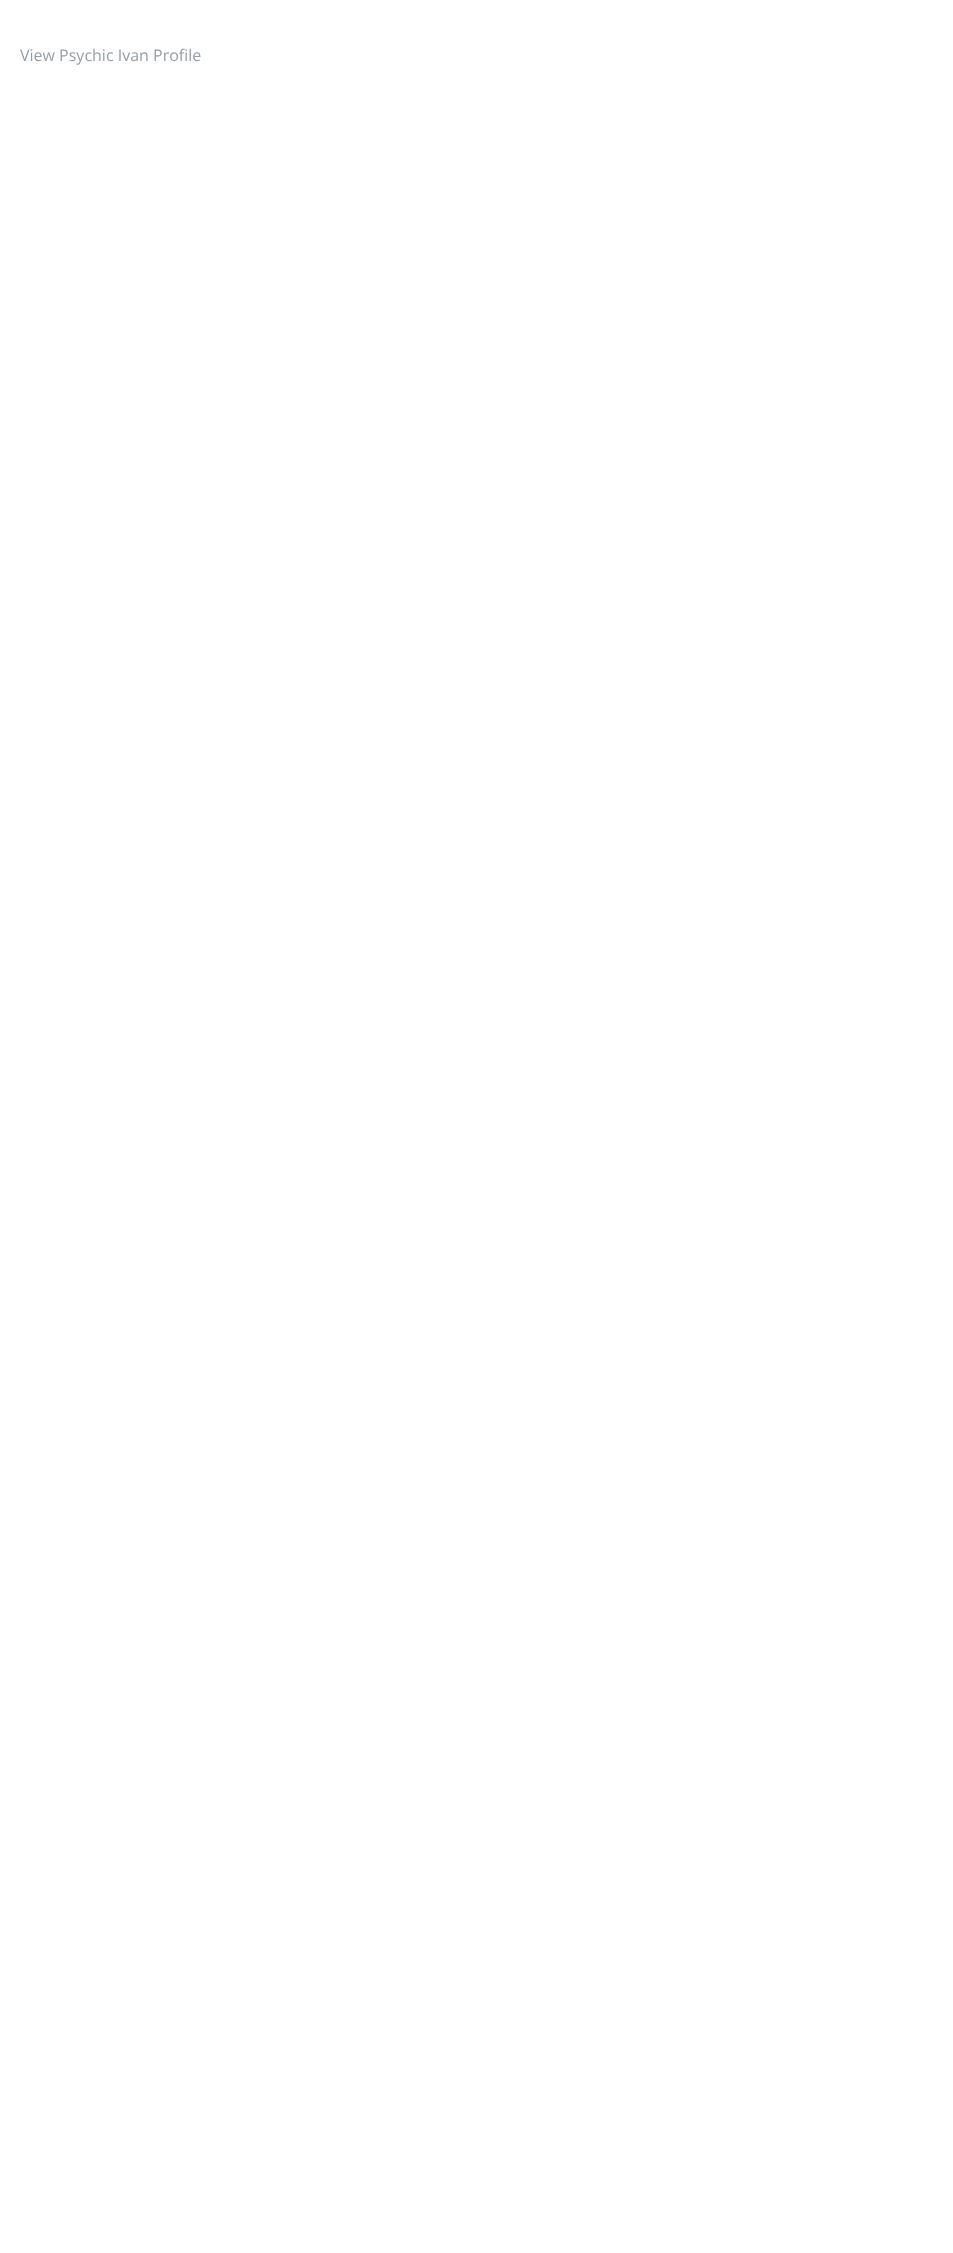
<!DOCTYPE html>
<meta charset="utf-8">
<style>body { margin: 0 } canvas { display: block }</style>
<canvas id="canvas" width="953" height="2253"></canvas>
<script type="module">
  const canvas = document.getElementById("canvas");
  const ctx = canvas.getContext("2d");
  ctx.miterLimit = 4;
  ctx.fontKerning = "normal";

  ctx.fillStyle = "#ffffff";
  ctx.fillRect(0, 0, 953, 2253);
  ctx.font = "16px Open Sans";
  ctx.fillStyle = "#939faa";
  ctx.fillText("View Psychic Ivan Profile", 20, 61);
</script>
